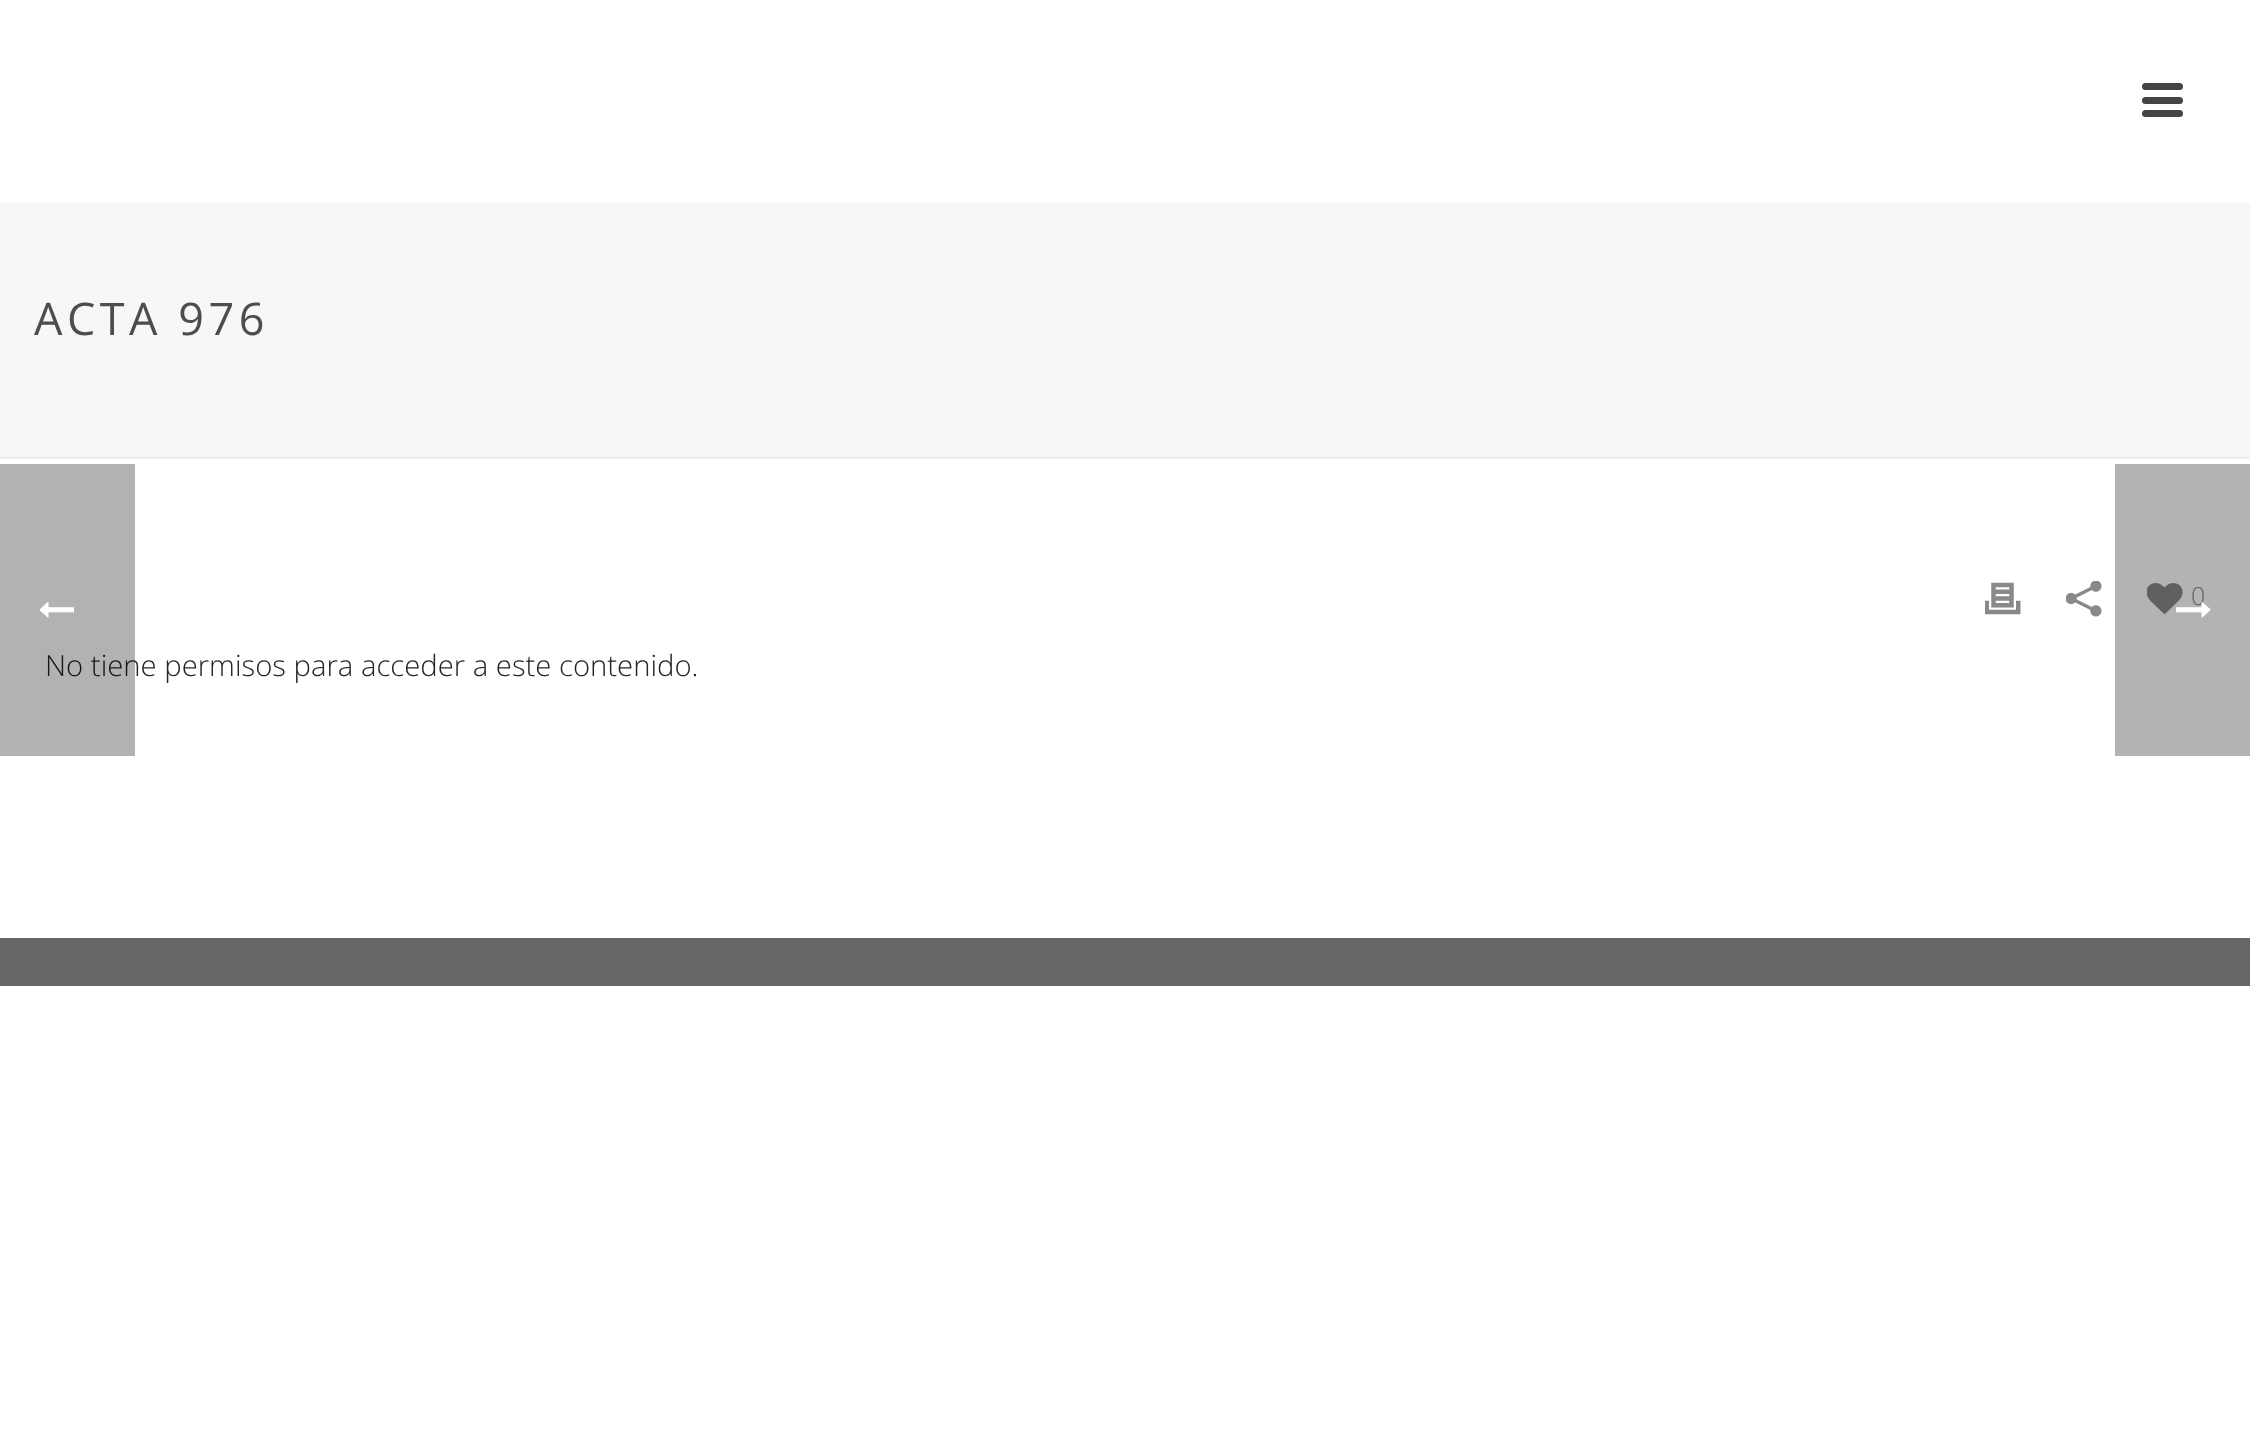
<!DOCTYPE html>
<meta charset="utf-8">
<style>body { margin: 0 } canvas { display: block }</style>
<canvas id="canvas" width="2250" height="1442"></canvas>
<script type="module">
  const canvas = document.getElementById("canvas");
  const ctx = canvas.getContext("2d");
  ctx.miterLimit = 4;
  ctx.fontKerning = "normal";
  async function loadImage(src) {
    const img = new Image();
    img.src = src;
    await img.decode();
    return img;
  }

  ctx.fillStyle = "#ffffff";
  ctx.fillRect(0, 0, 2250, 1442);
  ctx.fillStyle = "#b3b3b3";
  ctx.fillRect(2115, 464, 135, 292);
  ctx.fillStyle = "#f7f7f7";
  ctx.fillRect(0, 203, 2250, 254);
  ctx.fillStyle = "#ededed";
  ctx.fillRect(0, 457, 2250, 2);
  ctx.fillStyle = "#444444";
  ctx.beginPath();
  ctx.roundRect(2142, 83, 41, 7, 3.5);
  ctx.fill();
  ctx.beginPath();
  ctx.roundRect(2142, 97, 41, 7, 3.5);
  ctx.fill();
  ctx.beginPath();
  ctx.roundRect(2142, 110, 41, 7, 3.5);
  ctx.fill();
  ctx.letterSpacing = "4.5px";
  ctx.font = "45px Open Sans";
  ctx.fillStyle = "#4d4d4d";
  ctx.fillText("ACTA 976", 34, 335);
  ctx.drawImage(await loadImage("img1.png"), 1985, 582, 36, 33);
  ctx.drawImage(await loadImage("img2.png"), 2066, 581, 36, 36);
  ctx.drawImage(await loadImage("img3.png"), 2147, 583, 36, 31);
  ctx.letterSpacing = "0px";
  ctx.font = "300 25px Open Sans";
  ctx.fillStyle = "#606060";
  ctx.fillText("0", 2191, 605);
  ctx.font = "300 29.25px Open Sans";
  ctx.fillStyle = "#252525";
  ctx.fillText("No tiene permisos para acceder a este contenido.", 45, 676);
  ctx.fillStyle = "#666666";
  ctx.fillRect(0, 938, 2250, 48);
  ctx.fillStyle = "rgba(0, 0, 0, 0.3)";
  ctx.fillRect(0, 464, 135, 292);
  ctx.drawImage(await loadImage("img4.png"), 39, 602, 35, 16);
  ctx.drawImage(await loadImage("img5.png"), 2176, 602, 35, 16);
</script>
